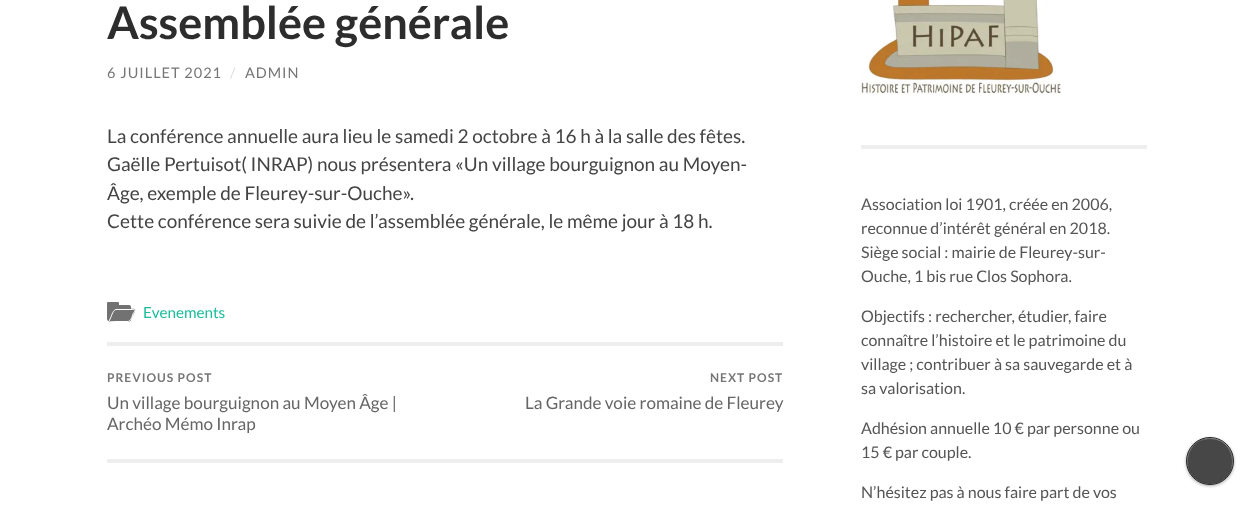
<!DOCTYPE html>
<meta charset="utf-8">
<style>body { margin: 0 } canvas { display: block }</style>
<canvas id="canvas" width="1254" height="505"></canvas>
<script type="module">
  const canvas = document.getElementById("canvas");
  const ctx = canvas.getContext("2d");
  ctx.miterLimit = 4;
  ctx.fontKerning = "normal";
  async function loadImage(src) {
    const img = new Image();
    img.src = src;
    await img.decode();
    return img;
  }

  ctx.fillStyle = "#ffffff";
  ctx.fillRect(0, 0, 1254, 505);
  ctx.font = "bold 45px Lato";
  ctx.fillStyle = "#2d2d2d";
  ctx.fillText("Assemblée générale", 107, 39);
  ctx.letterSpacing = "1px";
  ctx.font = "14.5px Lato";
  ctx.fillStyle = "#767676";
  ctx.fillText("6 JUILLET 2021", 107, 78);
  ctx.fillStyle = "#dddddd";
  ctx.fillText("/", 230, 78);
  ctx.fillStyle = "#767676";
  ctx.fillText("ADMIN", 245, 78);
  ctx.letterSpacing = "0px";
  ctx.font = "19px Lato";
  ctx.fillStyle = "#444444";
  ctx.fillText("La conférence annuelle aura lieu le samedi 2 octobre à 16 h à la salle des fêtes.", 107, 143);
  ctx.fillText("Gaëlle Pertuisot( INRAP) nous présentera «Un village bourguignon au Moyen-", 107, 171);
  ctx.fillText("Âge, exemple de Fleurey-sur-Ouche».", 107, 200);
  ctx.fillText("Cette conférence sera suivie de l’assemblée générale, le même jour à 18 h.", 107, 228);
  ctx.fillStyle = "#727272";
  ctx.beginPath();
  ctx.roundRect(107, 305, 24, 16, [0, 2, 2, 2]);
  ctx.fill();
  ctx.beginPath();
  ctx.roundRect(107, 302, 12, 3, [1, 1, 0, 0]);
  ctx.fill();
  ctx.beginPath();
  ctx.moveTo(116, 309);
  ctx.lineTo(128, 309);
  ctx.bezierCurveTo(132.5, 309, 137, 307.5, 134.5, 312.5);
  ctx.lineTo(131.5, 318.5);
  ctx.bezierCurveTo(130, 322.5, 129, 322, 125, 322);
  ctx.lineTo(110, 322);
  ctx.bezierCurveTo(107, 322, 110.5, 316.5, 111, 315.5);
  ctx.bezierCurveTo(112, 313.5, 113, 309, 116, 309);
  ctx.closePath();
  ctx.fill();
  ctx.beginPath();
  ctx.moveTo(116, 309.5);
  ctx.lineTo(131, 309.5);
  ctx.bezierCurveTo(136, 309.5, 135.5, 309.5, 133, 314);
  ctx.bezierCurveTo(132.5, 316, 130.5, 321.5, 128, 321.5);
  ctx.lineTo(116, 321.5);
  ctx.bezierCurveTo(109, 321.5, 108, 323, 111, 317);
  ctx.bezierCurveTo(111.5, 315.5, 113.5, 309.5, 116, 309.5);
  ctx.closePath();
  ctx.strokeStyle = "#ffffff";
  ctx.stroke();
  ctx.font = "15.25px Lato";
  ctx.fillStyle = "#1abc9c";
  ctx.fillText("Evenements", 143, 318);
  ctx.fillStyle = "#eeeeee";
  ctx.fillRect(107, 342, 676, 4);
  ctx.fillRect(107, 459, 676, 4);
  ctx.letterSpacing = "1px";
  ctx.font = "bold 12px Lato";
  ctx.fillStyle = "#767676";
  ctx.fillText("PREVIOUS POST", 107, 382);
  ctx.letterSpacing = "0px";
  ctx.font = "17.1px Lato";
  ctx.fillStyle = "#666666";
  ctx.fillText("Un village bourguignon au Moyen Âge |", 107, 409);
  ctx.fillText("Archéo Mémo Inrap", 107, 430);
  ctx.letterSpacing = "1px";
  ctx.font = "bold 12px Lato";
  ctx.fillStyle = "#767676";
  ctx.fillText("NEXT POST", 710, 382);
  ctx.letterSpacing = "0px";
  ctx.font = "17.1px Lato";
  ctx.fillStyle = "#666666";
  ctx.fillText("La Grande voie romaine de Fleurey", 525, 409);
  ctx.fillStyle = "#eeeeee";
  ctx.fillRect(861, 145, 286, 4);
  ctx.drawImage(await loadImage("img1.png"), 861, 0, 200, 95);
  ctx.font = "16px Lato";
  ctx.fillStyle = "#555555";
  ctx.fillText("Association loi 1901, créée en 2006,", 861, 210);
  ctx.fillText("reconnue d’intérêt général en 2018.", 861, 234);
  ctx.fillText("Siège social : mairie de Fleurey-sur-", 861, 258);
  ctx.fillText("Ouche, 1 bis rue Clos Sophora.", 861, 282);
  ctx.fillText("Objectifs : rechercher, étudier, faire", 861, 322);
  ctx.fillText("connaître l’histoire et le patrimoine du", 861, 346);
  ctx.fillText("village ; contribuer à sa sauvegarde et à", 861, 370);
  ctx.fillText("sa valorisation.", 861, 394);
  ctx.fillText("Adhésion annuelle 10 € par personne ou", 861, 434);
  ctx.fillText("15 € par couple.", 861, 458);
  ctx.fillText("N’hésitez pas à nous faire part de vos", 861, 498);
  ctx.fillStyle = "rgba(38, 38, 38, 0.4)";
  ctx.filter = "blur(1.5px)";
  ctx.beginPath();
  ctx.roundRect(1186, 438, 48, 48, 24);
  ctx.fill();
  ctx.filter = "none";
  ctx.fillStyle = "#474747";
  ctx.beginPath();
  ctx.arc(1210, 461, 23, 0, Math.PI * 2);
  ctx.fill();
  ctx.fillStyle = "rgba(255, 255, 255, 0.4)";
  ctx.beginPath();
  ctx.moveTo(1210, 439);
  ctx.bezierCurveTo(1228, 439, 1235, 456, 1231, 469);
  ctx.bezierCurveTo(1234, 464, 1233, 458, 1231, 452);
  ctx.bezierCurveTo(1220, 424, 1178, 442, 1189, 469);
  ctx.bezierCurveTo(1185, 456, 1192, 439, 1210, 439);
  ctx.closePath();
  ctx.fill();
  ctx.beginPath();
  ctx.arc(1210, 461, 22.5, 0, Math.PI * 2);
  ctx.strokeStyle = "rgba(38, 38, 38, 0.2)";
  ctx.stroke();
  ctx.beginPath();
  ctx.arc(1210, 461, 23.5, 0, Math.PI * 2);
  ctx.strokeStyle = "#262626";
  ctx.stroke();
</script>
